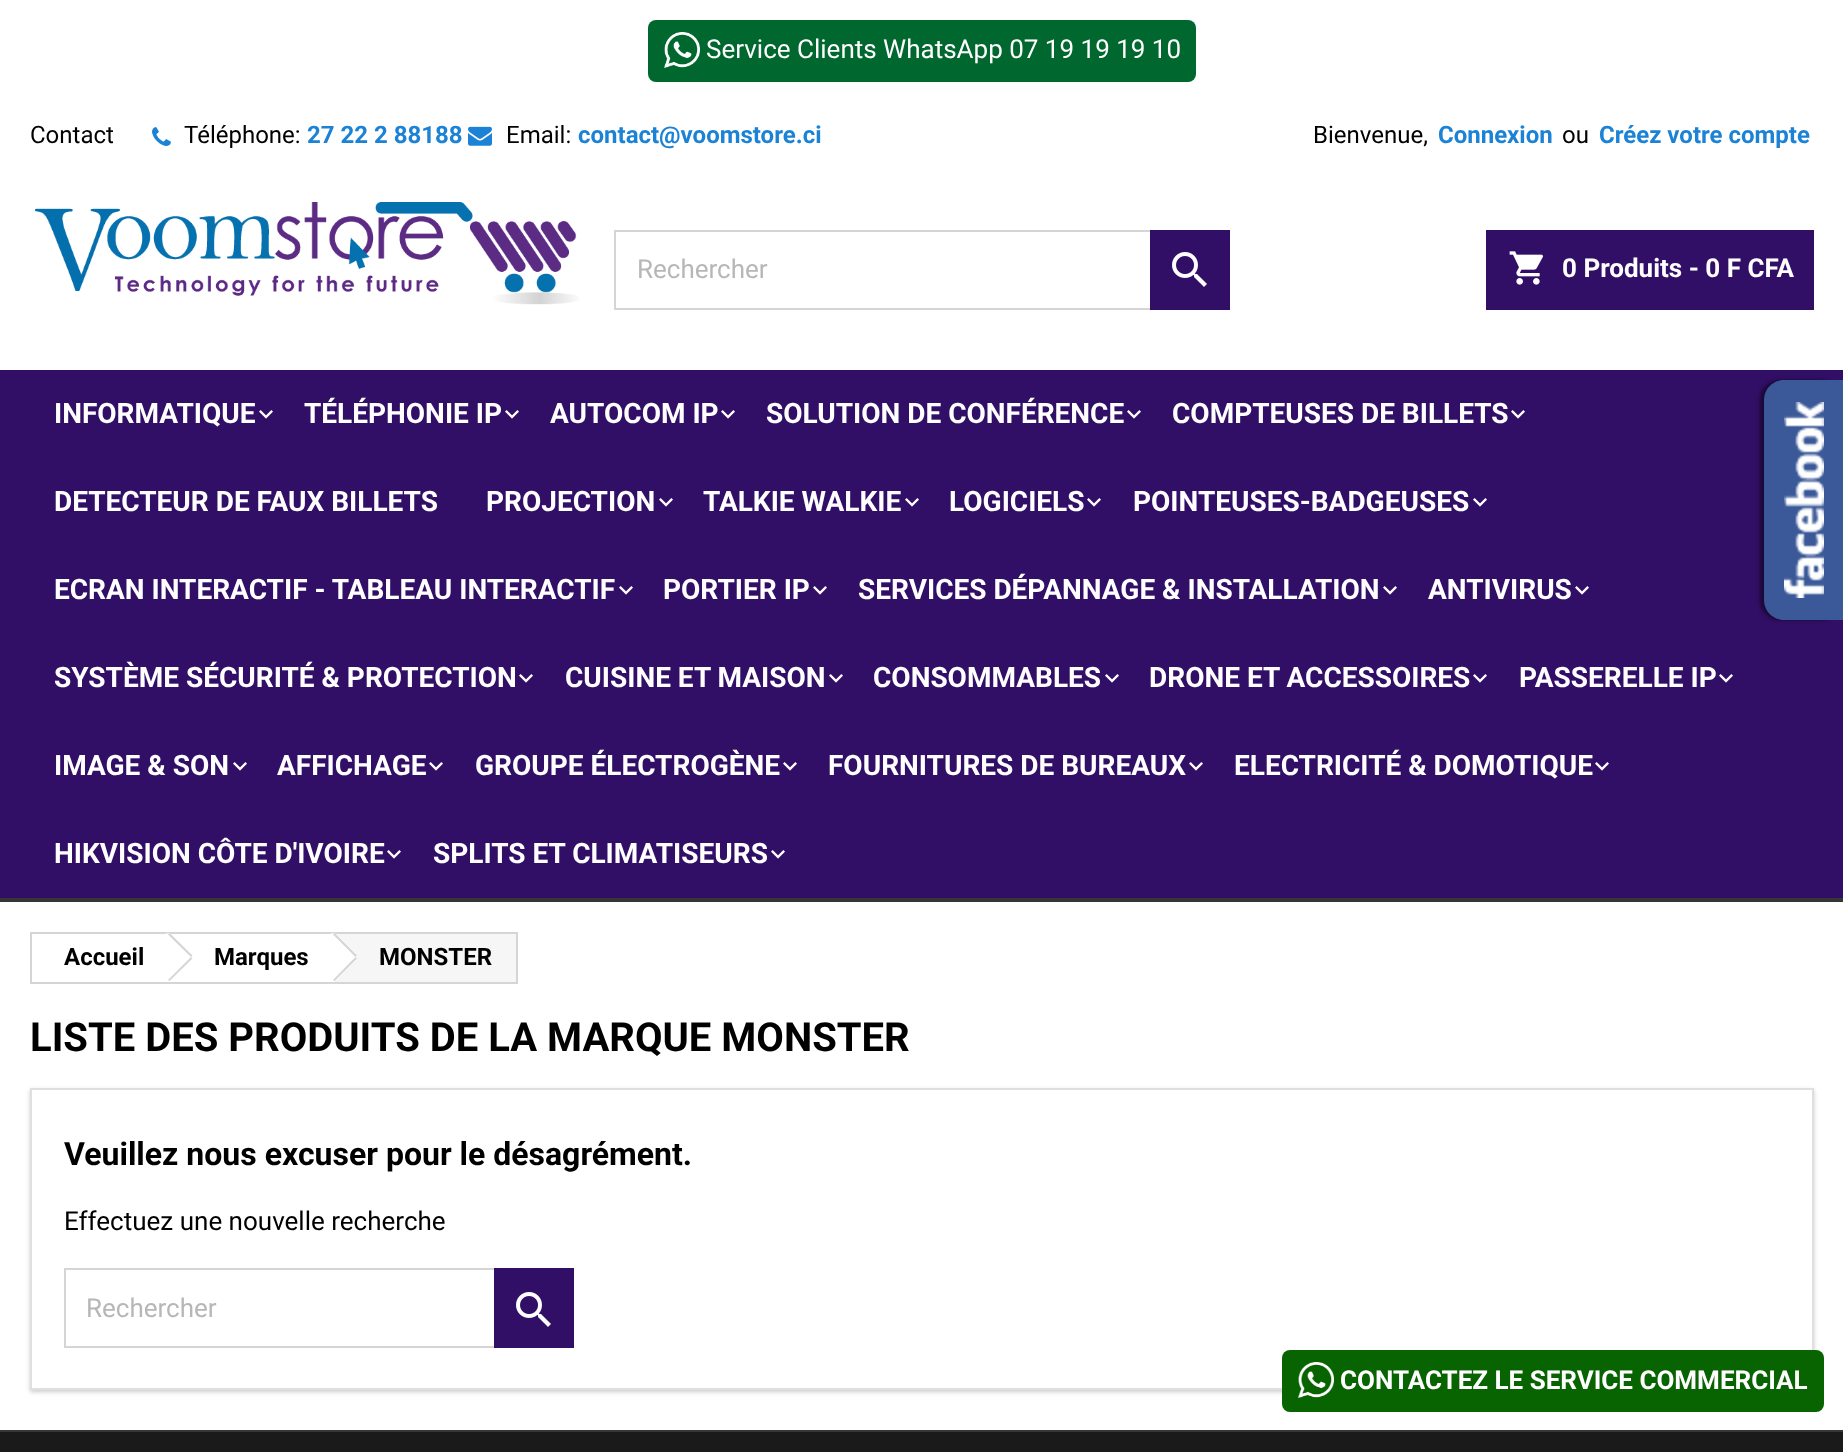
<!DOCTYPE html>
<meta charset="utf-8">
<style>body { margin: 0 } canvas { display: block }</style>
<canvas id="canvas" width="1843" height="1452"></canvas>
<script type="module">
  const canvas = document.getElementById("canvas");
  const ctx = canvas.getContext("2d");
  ctx.miterLimit = 4;
  ctx.fontKerning = "normal";
  async function loadImage(src) {
    const img = new Image();
    img.src = src;
    await img.decode();
    return img;
  }

  ctx.fillStyle = "#ffffff";
  ctx.fillRect(0, 0, 1843, 1452);
  ctx.fillStyle = "#00682f";
  ctx.beginPath();
  ctx.roundRect(648, 20, 548, 62, 8);
  ctx.fill();
  ctx.drawImage(await loadImage("img1.png"), 664, 32, 36, 36);
  ctx.font = "26px Roboto";
  ctx.fillStyle = "#ffffff";
  ctx.fillText("Service Clients WhatsApp 07 19 19 19 10", 706, 58);
  ctx.font = "24px Roboto";
  ctx.fillStyle = "#000000";
  ctx.fillText("Contact", 30, 143);
  ctx.drawImage(await loadImage("img2.png"), 152, 127, 19, 19);
  ctx.fillText("Téléphone:", 184, 143);
  ctx.font = "bold 24px Roboto";
  ctx.fillStyle = "#1b82d6";
  ctx.fillText("27 22 2 88188", 307, 143);
  ctx.drawImage(await loadImage("img3.png"), 468, 126, 24, 20);
  ctx.font = "24px Roboto";
  ctx.fillStyle = "#000000";
  ctx.fillText("Email:", 506, 143);
  ctx.font = "bold 24px Roboto";
  ctx.fillStyle = "#1b82d6";
  ctx.fillText("contact@voomstore.ci", 578, 143);
  ctx.font = "24px Roboto";
  ctx.fillStyle = "#000000";
  ctx.fillText("Bienvenue,", 1313, 143);
  ctx.font = "bold 24px Roboto";
  ctx.fillStyle = "#1b82d6";
  ctx.fillText("Connexion", 1438, 143);
  ctx.font = "24px Roboto";
  ctx.fillStyle = "#000000";
  ctx.fillText("ou", 1562, 143);
  ctx.font = "bold 24px Roboto";
  ctx.fillStyle = "#1b82d6";
  ctx.fillText("Créez votre compte", 1599, 143);
  ctx.drawImage(await loadImage("img4.png"), 35, 202, 544, 103);
  ctx.strokeStyle = "#d6d4d4";
  ctx.lineWidth = 2;
  ctx.strokeRect(615, 231, 614, 78);
  ctx.font = "26px Roboto";
  ctx.fillStyle = "#b7b7b7";
  ctx.fillText("Rechercher", 637, 278);
  ctx.fillStyle = "#320f66";
  ctx.fillRect(1150, 230, 80, 80);
  ctx.drawImage(await loadImage("img5.png"), 1172, 252, 35, 35);
  ctx.fillRect(1486, 230, 328, 80);
  ctx.drawImage(await loadImage("img6.png"), 1509, 251, 34, 34);
  ctx.font = "bold 26px Roboto";
  ctx.fillStyle = "#ffffff";
  ctx.fillText("0 Produits - 0 F CFA", 1562, 277);
  ctx.fillStyle = "#320f66";
  ctx.fillRect(0, 370, 1843, 528);
  ctx.fillStyle = "#363636";
  ctx.fillRect(0, 898, 1843, 4);
  ctx.font = "bold 28px Roboto";
  ctx.fillStyle = "#ffffff";
  ctx.fillText("INFORMATIQUE", 54, 423);
  ctx.drawImage(await loadImage("img7.png"), 259, 410, 14, 9);
  ctx.fillText("TÉLÉPHONIE IP", 304, 423);
  ctx.drawImage(await loadImage("img7.png"), 505, 410, 14, 9);
  ctx.fillText("AUTOCOM IP", 550, 423);
  ctx.drawImage(await loadImage("img7.png"), 721, 410, 14, 9);
  ctx.fillText("SOLUTION DE CONFÉRENCE", 766, 423);
  ctx.drawImage(await loadImage("img7.png"), 1127, 410, 14, 9);
  ctx.fillText("COMPTEUSES DE BILLETS", 1172, 423);
  ctx.drawImage(await loadImage("img7.png"), 1511, 410, 14, 9);
  ctx.fillText("DETECTEUR DE FAUX BILLETS", 54, 511);
  ctx.fillText("PROJECTION", 486, 511);
  ctx.drawImage(await loadImage("img7.png"), 659, 498, 14, 9);
  ctx.fillText("TALKIE WALKIE", 703, 511);
  ctx.drawImage(await loadImage("img7.png"), 905, 498, 14, 9);
  ctx.fillText("LOGICIELS", 949, 511);
  ctx.drawImage(await loadImage("img7.png"), 1087, 498, 14, 9);
  ctx.fillText("POINTEUSES-BADGEUSES", 1133, 511);
  ctx.drawImage(await loadImage("img7.png"), 1473, 498, 14, 9);
  ctx.fillText("ECRAN INTERACTIF - TABLEAU INTERACTIF", 54, 599);
  ctx.drawImage(await loadImage("img7.png"), 619, 586, 14, 9);
  ctx.fillText("PORTIER IP", 663, 599);
  ctx.drawImage(await loadImage("img7.png"), 813, 586, 14, 9);
  ctx.fillText("SERVICES DÉPANNAGE & INSTALLATION", 858, 599);
  ctx.drawImage(await loadImage("img7.png"), 1383, 586, 14, 9);
  ctx.fillText("ANTIVIRUS", 1428, 599);
  ctx.drawImage(await loadImage("img7.png"), 1575, 586, 14, 9);
  ctx.fillText("SYSTÈME SÉCURITÉ & PROTECTION", 54, 687);
  ctx.drawImage(await loadImage("img7.png"), 519, 674, 14, 9);
  ctx.fillText("CUISINE ET MAISON", 565, 687);
  ctx.drawImage(await loadImage("img7.png"), 829, 674, 14, 9);
  ctx.fillText("CONSOMMABLES", 873, 687);
  ctx.drawImage(await loadImage("img7.png"), 1105, 674, 14, 9);
  ctx.fillText("DRONE ET ACCESSOIRES", 1149, 687);
  ctx.drawImage(await loadImage("img7.png"), 1473, 674, 14, 9);
  ctx.fillText("PASSERELLE IP", 1519, 687);
  ctx.drawImage(await loadImage("img7.png"), 1719, 674, 14, 9);
  ctx.fillText("IMAGE & SON", 54, 775);
  ctx.drawImage(await loadImage("img7.png"), 233, 762, 14, 9);
  ctx.fillText("AFFICHAGE", 277, 775);
  ctx.drawImage(await loadImage("img7.png"), 429, 762, 14, 9);
  ctx.fillText("GROUPE ÉLECTROGÈNE", 475, 775);
  ctx.drawImage(await loadImage("img7.png"), 783, 762, 14, 9);
  ctx.fillText("FOURNITURES DE BUREAUX", 828, 775);
  ctx.drawImage(await loadImage("img7.png"), 1189, 762, 14, 9);
  ctx.fillText("ELECTRICITÉ & DOMOTIQUE", 1234, 775);
  ctx.drawImage(await loadImage("img7.png"), 1595, 762, 14, 9);
  ctx.fillText("HIKVISION CÔTE D'IVOIRE", 54, 863);
  ctx.drawImage(await loadImage("img7.png"), 387, 850, 14, 9);
  ctx.fillText("SPLITS ET CLIMATISEURS", 433, 863);
  ctx.drawImage(await loadImage("img7.png"), 771, 850, 14, 9);
  ctx.fillStyle = "rgba(0, 0, 0, 0.5)";
  ctx.filter = "blur(2px)";
  ctx.beginPath();
  ctx.roundRect(1760, 380, 80, 240, 20);
  ctx.fill();
  ctx.filter = "none";
  ctx.fillStyle = "#3b5998";
  ctx.beginPath();
  ctx.moveTo(1784, 380);
  ctx.lineTo(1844, 380);
  ctx.lineTo(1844, 620);
  ctx.lineTo(1784, 620);
  ctx.bezierCurveTo(1773, 620, 1764, 611, 1764, 600);
  ctx.lineTo(1764, 400);
  ctx.bezierCurveTo(1764, 389, 1773, 380, 1784, 380);
  ctx.closePath();
  ctx.fill();
  ctx.drawImage(await loadImage("img8.png"), 1784, 402, 40, 196);
  ctx.strokeRect(31, 933, 486, 50);
  ctx.font = "bold 24px Roboto";
  ctx.fillStyle = "#000000";
  ctx.fillText("Accueil", 64, 965);
  ctx.fillStyle = "#ffffff";
  ctx.beginPath();
  ctx.moveTo(171, 934);
  ctx.lineTo(191, 954);
  ctx.bezierCurveTo(192, 956, 192, 958, 191, 960);
  ctx.lineTo(171, 980);
  ctx.bezierCurveTo(170, 981, 167, 981, 165, 980);
  ctx.lineTo(146, 960);
  ctx.bezierCurveTo(144, 958, 144, 956, 146, 954);
  ctx.lineTo(165, 934);
  ctx.bezierCurveTo(167, 933, 170, 933, 171, 934);
  ctx.closePath();
  ctx.fill();
  ctx.fillStyle = "#d6d4d4";
  ctx.beginPath();
  ctx.moveTo(169.5, 933);
  ctx.lineTo(192.5, 955.5);
  ctx.lineTo(191, 957);
  ctx.lineTo(168, 934.5);
  ctx.closePath();
  ctx.moveTo(191, 957);
  ctx.lineTo(192.5, 958.5);
  ctx.lineTo(169.5, 981);
  ctx.lineTo(168, 980);
  ctx.closePath();
  ctx.fill();
  ctx.fillStyle = "#000000";
  ctx.fillText("Marques", 214, 965);
  ctx.fillStyle = "#f6f6f6";
  ctx.fillRect(334, 934, 182, 48);
  ctx.fillStyle = "#ffffff";
  ctx.beginPath();
  ctx.moveTo(336, 934);
  ctx.lineTo(356, 954);
  ctx.bezierCurveTo(357, 956, 357, 958, 356, 960);
  ctx.lineTo(336, 980);
  ctx.bezierCurveTo(334, 981, 332, 981, 330, 980);
  ctx.lineTo(310, 960);
  ctx.bezierCurveTo(309, 958, 309, 956, 310, 954);
  ctx.lineTo(330, 934);
  ctx.bezierCurveTo(332, 933, 334, 933, 336, 934);
  ctx.closePath();
  ctx.fill();
  ctx.fillStyle = "#d6d4d4";
  ctx.beginPath();
  ctx.moveTo(334.5, 933);
  ctx.lineTo(357, 955.5);
  ctx.lineTo(355.5, 957);
  ctx.lineTo(333, 934.5);
  ctx.closePath();
  ctx.moveTo(355.5, 957);
  ctx.lineTo(357, 958.5);
  ctx.lineTo(334.5, 981);
  ctx.lineTo(333, 980);
  ctx.closePath();
  ctx.fill();
  ctx.fillStyle = "#000000";
  ctx.fillText("MONSTER", 379, 965);
  ctx.font = "bold 40px Roboto";
  ctx.fillText("LISTE DES PRODUITS DE LA MARQUE MONSTER", 30, 1051);
  ctx.save();
  ctx.beginPath();
  ctx.moveTo(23, 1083);
  ctx.lineTo(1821, 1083);
  ctx.lineTo(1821, 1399);
  ctx.lineTo(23, 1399);
  ctx.closePath();
  ctx.moveTo(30, 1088);
  ctx.lineTo(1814, 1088);
  ctx.lineTo(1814, 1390);
  ctx.lineTo(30, 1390);
  ctx.closePath();
  ctx.clip("evenodd");
  ctx.fillStyle = "rgba(0, 0, 0, 0.2)";
  ctx.filter = "blur(2px)";
  ctx.beginPath();
  ctx.rect(30, 1090, 1784, 302);
  ctx.fill();
  ctx.filter = "none";
  ctx.restore();
  ctx.strokeStyle = "#dfdfdf";
  ctx.strokeRect(31, 1089, 1782, 300);
  ctx.font = "bold 32px Roboto";
  ctx.fillText("Veuillez nous excuser pour le désagrément.", 64, 1165);
  ctx.font = "26px Roboto";
  ctx.fillText("Effectuez une nouvelle recherche", 64, 1230);
  ctx.strokeStyle = "#d6d4d4";
  ctx.strokeRect(65, 1269, 508, 78);
  ctx.fillStyle = "#b7b7b7";
  ctx.fillText("Rechercher", 86, 1317);
  ctx.fillStyle = "#320f66";
  ctx.fillRect(494, 1268, 80, 80);
  ctx.drawImage(await loadImage("img5.png"), 516, 1292, 35, 35);
  ctx.fillStyle = "#1b1a1b";
  ctx.fillRect(0, 1432, 1843, 20);
  ctx.fillStyle = "#363636";
  ctx.fillRect(0, 1430, 1843, 2);
  ctx.fillStyle = "#086400";
  ctx.beginPath();
  ctx.roundRect(1282, 1350, 542, 62, 8);
  ctx.fill();
  ctx.drawImage(await loadImage("img9.png"), 1298, 1362, 36, 36);
  ctx.font = "bold 26px Roboto";
  ctx.fillStyle = "#ffffff";
  ctx.fillText("CONTACTEZ LE SERVICE COMMERCIAL", 1340, 1389);
</script>
